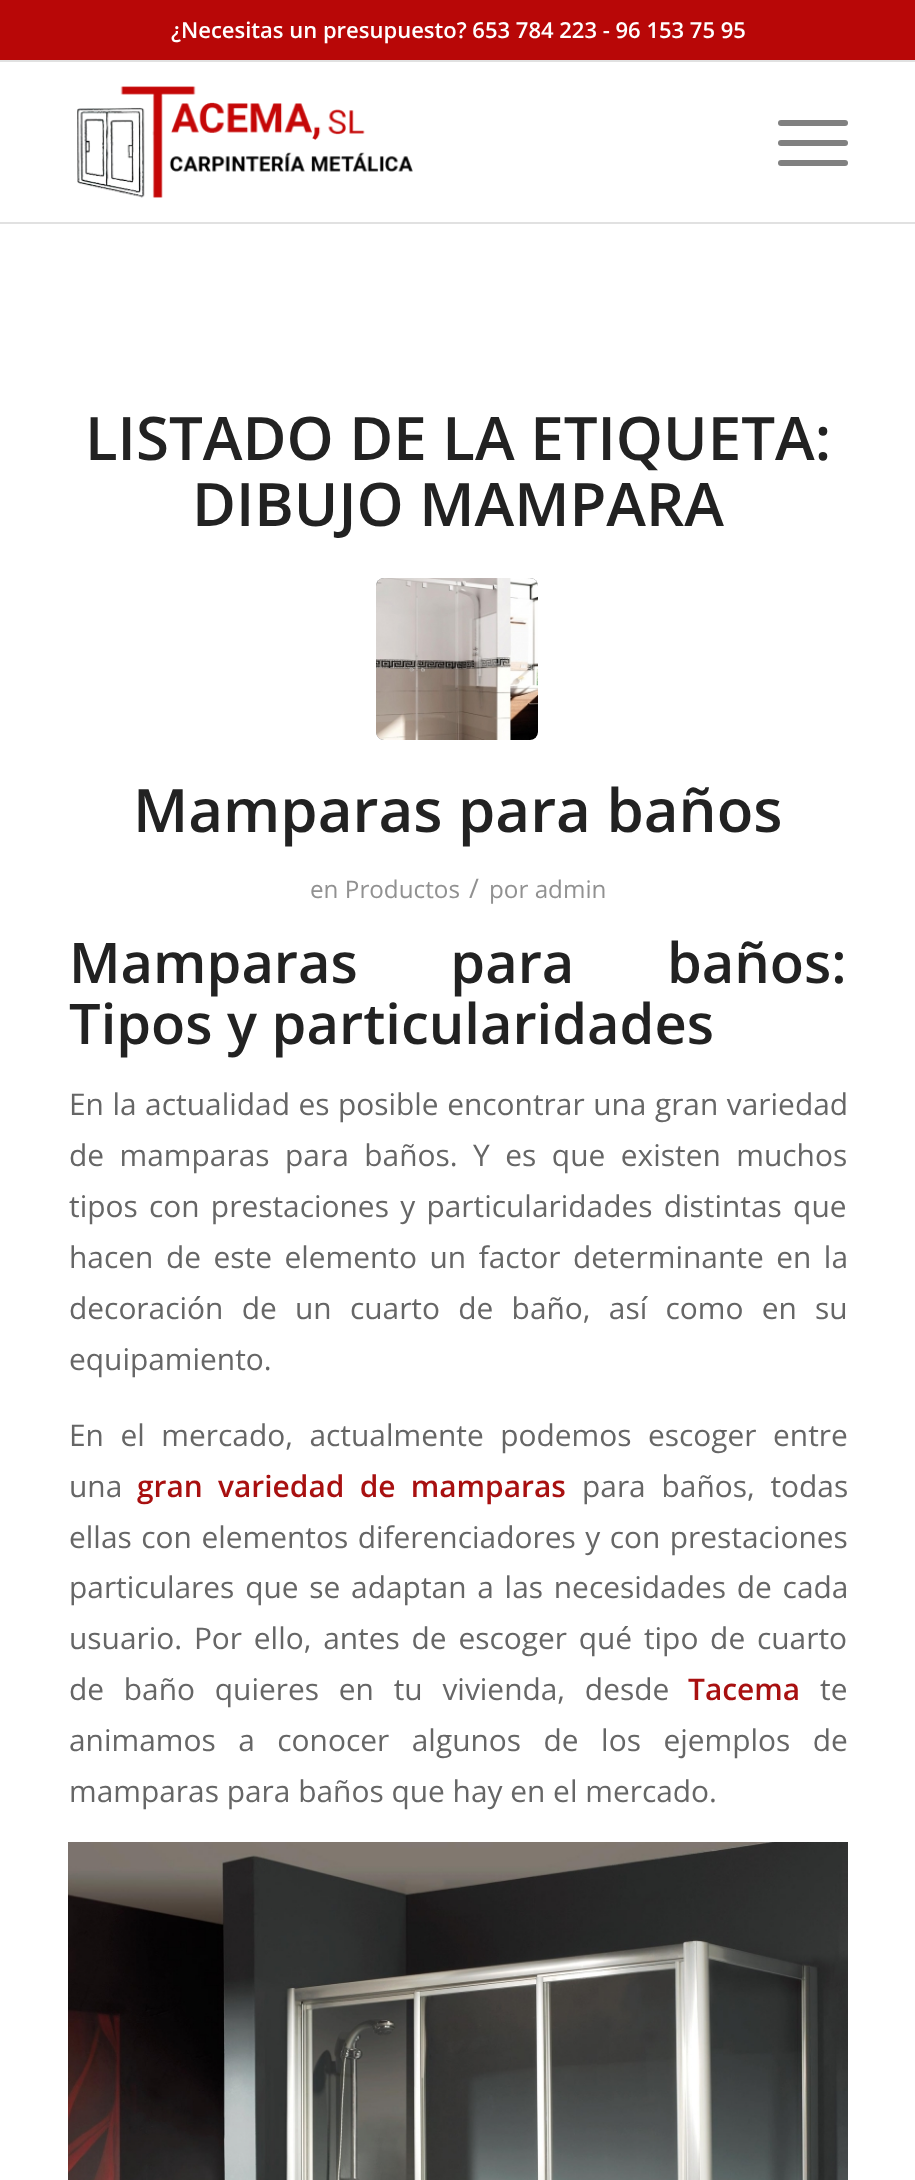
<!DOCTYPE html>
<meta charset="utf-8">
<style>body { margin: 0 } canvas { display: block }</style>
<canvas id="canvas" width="915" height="2180"></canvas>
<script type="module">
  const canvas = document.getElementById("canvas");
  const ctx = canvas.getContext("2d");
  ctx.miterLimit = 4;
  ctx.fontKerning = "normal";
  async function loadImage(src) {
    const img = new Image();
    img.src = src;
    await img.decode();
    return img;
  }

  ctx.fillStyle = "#ffffff";
  ctx.fillRect(0, 0, 915, 2180);
  ctx.fillStyle = "#b80707";
  ctx.fillRect(0, 0, 915, 60);
  ctx.fillStyle = "#e1e1e1";
  ctx.fillRect(0, 60, 915, 2);
  ctx.font = "600 22px Open Sans";
  ctx.fillStyle = "#ffffff";
  ctx.fillText("¿Necesitas un presupuesto? 653 784 223 - 96 153 75 95", 171, 38);
  ctx.fillStyle = "#e1e1e1";
  ctx.fillRect(0, 222, 915, 2);
  ctx.drawImage(await loadImage("img1.png"), 77, 86, 336, 112);
  ctx.fillStyle = "#808080";
  ctx.beginPath();
  ctx.roundRect(778, 140, 70, 6, 3);
  ctx.fill();
  ctx.beginPath();
  ctx.roundRect(778, 120, 70, 6, 3);
  ctx.fill();
  ctx.beginPath();
  ctx.roundRect(778, 160, 70, 6, 3);
  ctx.fill();
  ctx.font = "600 60px Open Sans";
  ctx.fillStyle = "#222222";
  ctx.fillText("LISTADO DE LA ETIQUETA:", 85, 460);
  ctx.fillText("DIBUJO MAMPARA", 192, 526);
  ctx.fillStyle = "#919191";
  ctx.beginPath();
  ctx.roundRect(376, 578, 162, 162, 8);
  ctx.fill();
  ctx.drawImage(await loadImage("img2.png"), 376, 578, 162, 162);
  ctx.fillStyle = "#222222";
  ctx.fillText("Mamparas para baños", 133, 832);
  ctx.font = "24.25px Open Sans";
  ctx.fillStyle = "#919191";
  ctx.fillText("en Productos", 310, 898);
  ctx.font = "27px Open Sans";
  ctx.fillText("/", 469, 898);
  ctx.font = "24.25px Open Sans";
  ctx.fillText("por admin", 489, 898);
  ctx.wordSpacing = "78px";
  ctx.font = "600 56px Open Sans";
  ctx.fillStyle = "#222222";
  ctx.fillText("Mamparas para baños:", 69, 983);
  ctx.wordSpacing = "0px";
  ctx.fillText("Tipos y particularidades", 69, 1044);
  ctx.wordSpacing = "0.75px";
  ctx.font = "29.9px Open Sans";
  ctx.fillStyle = "#666666";
  ctx.fillText("En la actualidad es posible encontrar una gran variedad", 69, 1115);
  ctx.wordSpacing = "7.75px";
  ctx.fillText("de mamparas para baños. Y es que existen muchos", 69, 1166);
  ctx.wordSpacing = "3.5px";
  ctx.fillText("tipos con prestaciones y particularidades distintas que", 69, 1217);
  ctx.wordSpacing = "4.75px";
  ctx.fillText("hacen de este elemento un factor determinante en la", 69, 1268);
  ctx.wordSpacing = "10.5px";
  ctx.fillText("decoración de un cuarto de baño, así como en su", 69, 1319);
  ctx.wordSpacing = "0px";
  ctx.fillText("equipamiento.", 69, 1370);
  ctx.wordSpacing = "8.75px";
  ctx.fillText("En el mercado, actualmente podemos escoger entre", 69, 1446);
  ctx.wordSpacing = "0px";
  ctx.fillText("una", 69, 1497);
  ctx.wordSpacing = "7.5px";
  ctx.font = "600 29.9px Open Sans";
  ctx.fillStyle = "#a81010";
  ctx.fillText("gran variedad de mamparas", 137, 1497);
  ctx.wordSpacing = "8px";
  ctx.font = "29.9px Open Sans";
  ctx.fillStyle = "#666666";
  ctx.fillText("para baños, todas", 582, 1497);
  ctx.wordSpacing = "1.75px";
  ctx.fillText("ellas con elementos diferenciadores y con prestaciones", 69, 1548);
  ctx.wordSpacing = "3px";
  ctx.fillText("particulares que se adaptan a las necesidades de cada", 69, 1598);
  ctx.wordSpacing = "4px";
  ctx.fillText("usuario. Por ello, antes de escoger qué tipo de cuarto", 69, 1649);
  ctx.wordSpacing = "12px";
  ctx.fillText("de baño quieres en tu vivienda, desde", 69, 1700);
  ctx.wordSpacing = "0px";
  ctx.font = "600 29.9px Open Sans";
  ctx.fillStyle = "#a81010";
  ctx.fillText("Tacema", 688, 1700);
  ctx.font = "29.9px Open Sans";
  ctx.fillStyle = "#666666";
  ctx.fillText("te", 820, 1700);
  ctx.wordSpacing = "14.75px";
  ctx.fillText("animamos a conocer algunos de los ejemplos de", 69, 1751);
  ctx.wordSpacing = "0px";
  ctx.fillText("mamparas para baños que hay en el mercado.", 69, 1802);
  ctx.drawImage(await loadImage("img3.png"), 68, 1842, 780, 338);
</script>
